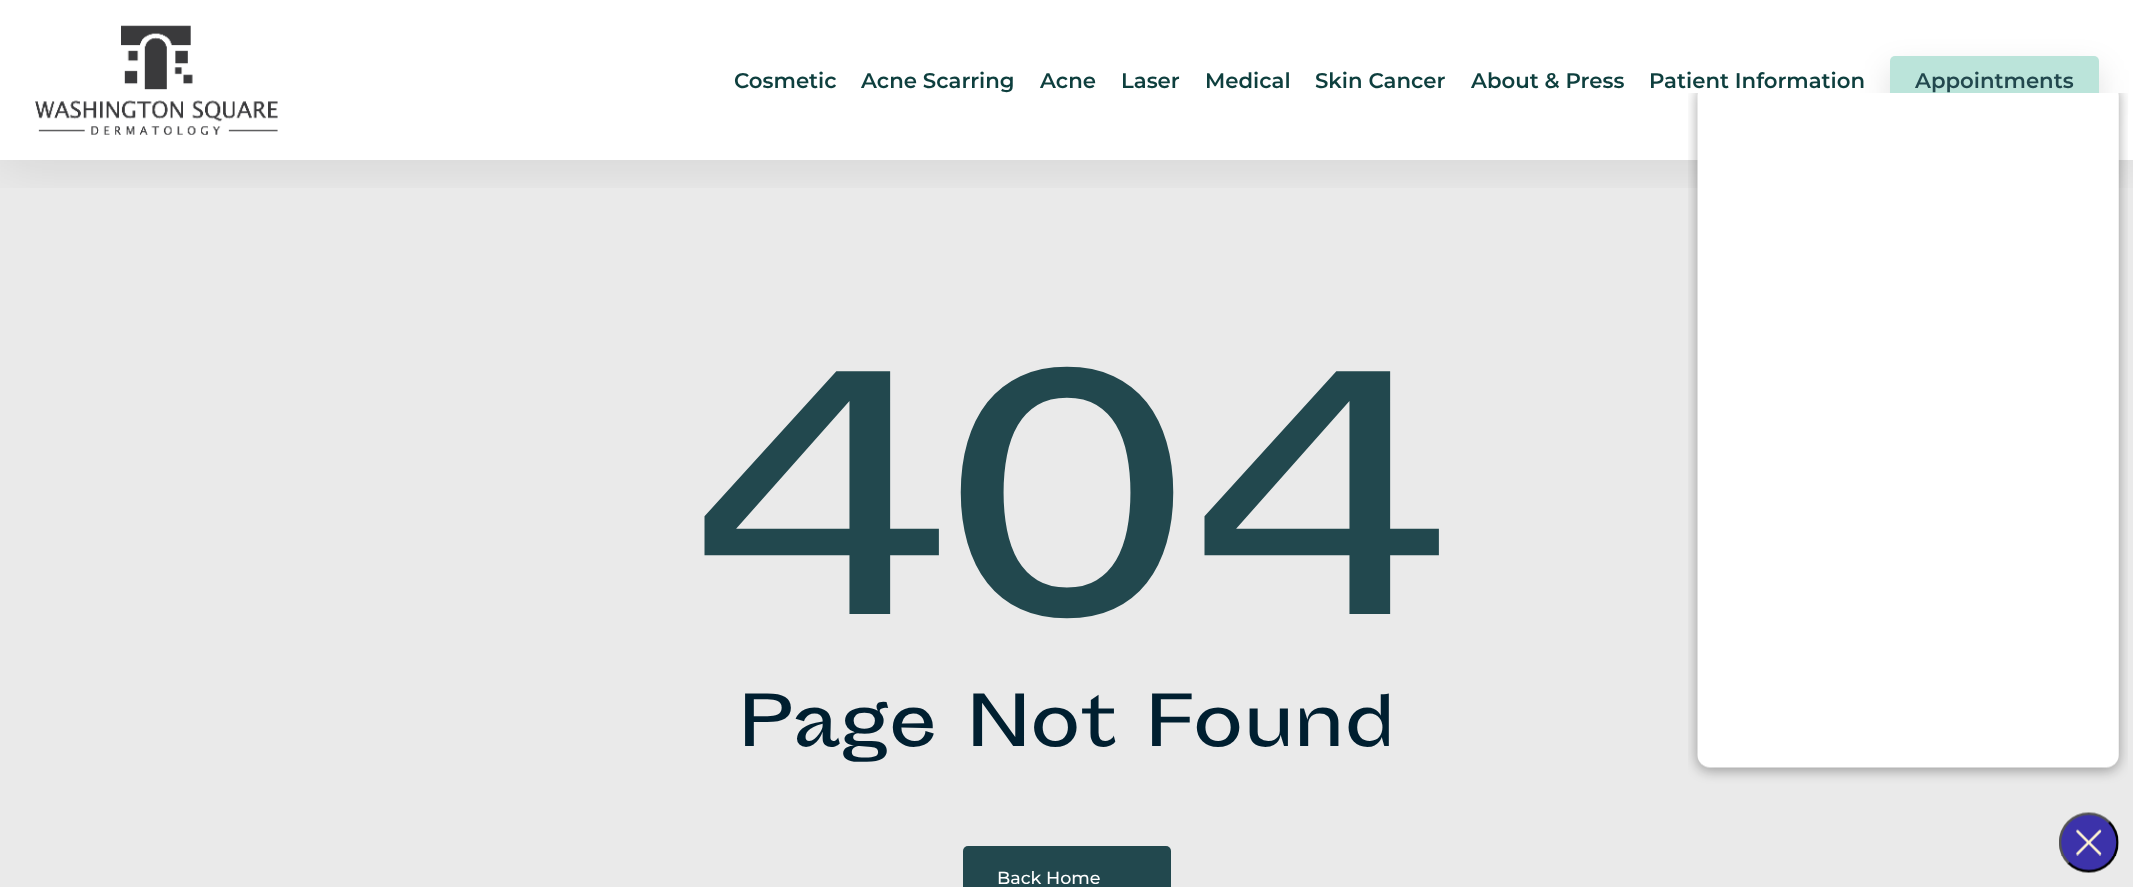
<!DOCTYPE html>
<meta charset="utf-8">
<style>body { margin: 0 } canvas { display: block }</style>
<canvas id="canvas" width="2133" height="887"></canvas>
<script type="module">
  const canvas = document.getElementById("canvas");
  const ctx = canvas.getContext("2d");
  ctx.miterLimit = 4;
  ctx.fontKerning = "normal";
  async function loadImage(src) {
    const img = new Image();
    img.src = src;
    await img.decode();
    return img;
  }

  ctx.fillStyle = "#eaeaea";
  ctx.fillRect(0, 0, 2133, 887);
  ctx.fillStyle = "#ffffff";
  ctx.fillRect(0, 0, 2133, 160);
  ctx.save();
  ctx.beginPath();
  ctx.rect(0, 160, 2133, 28);
  ctx.clip();
  ctx.fillStyle = "rgba(0, 0, 0, 0.1)";
  ctx.filter = "blur(28px)";
  ctx.beginPath();
  ctx.rect(0, 4, 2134, 160);
  ctx.fill();
  ctx.filter = "none";
  ctx.restore();
  ctx.drawImage(await loadImage("img1.png"), 35, 25, 243, 110);
  ctx.font = "600 21.25px Montserrat";
  ctx.fillStyle = "#0e3f3e";
  ctx.fillText("Cosmetic", 734, 88);
  ctx.fillText("Acne Scarring", 861, 88);
  ctx.fillText("Acne", 1040, 88);
  ctx.fillText("Laser", 1121, 88);
  ctx.fillText("Medical", 1205, 88);
  ctx.fillText("Skin Cancer", 1315, 88);
  ctx.fillText("About & Press", 1471, 88);
  ctx.fillText("Patient Information", 1649, 88);
  ctx.fillStyle = "rgba(0, 0, 0, 0.13)";
  ctx.filter = "blur(15.5px)";
  ctx.beginPath();
  ctx.roundRect(1890, 69, 209, 47, 5);
  ctx.fill();
  ctx.filter = "none";
  ctx.fillStyle = "#bbe4da";
  ctx.beginPath();
  ctx.roundRect(1890, 56, 209, 48, 5);
  ctx.fill();
  ctx.fillStyle = "#22484e";
  ctx.fillText("Appointments", 1915, 88);
  ctx.font = "312.5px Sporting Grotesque";
  ctx.fillText("404", 692, 614);
  ctx.font = "67.5px Sporting Grotesque";
  ctx.fillStyle = "#001f30";
  ctx.fillText("Page Not Found", 739, 746);
  ctx.fillStyle = "#22484e";
  ctx.beginPath();
  ctx.roundRect(963, 846, 208, 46, 5);
  ctx.fill();
  ctx.font = "500 17.5px Montserrat";
  ctx.fillStyle = "#ffffff";
  ctx.fillText("Back Home", 997, 884);
  ctx.drawImage(await loadImage("img2.png"), 1688, 93, 440, 780);
</script>
